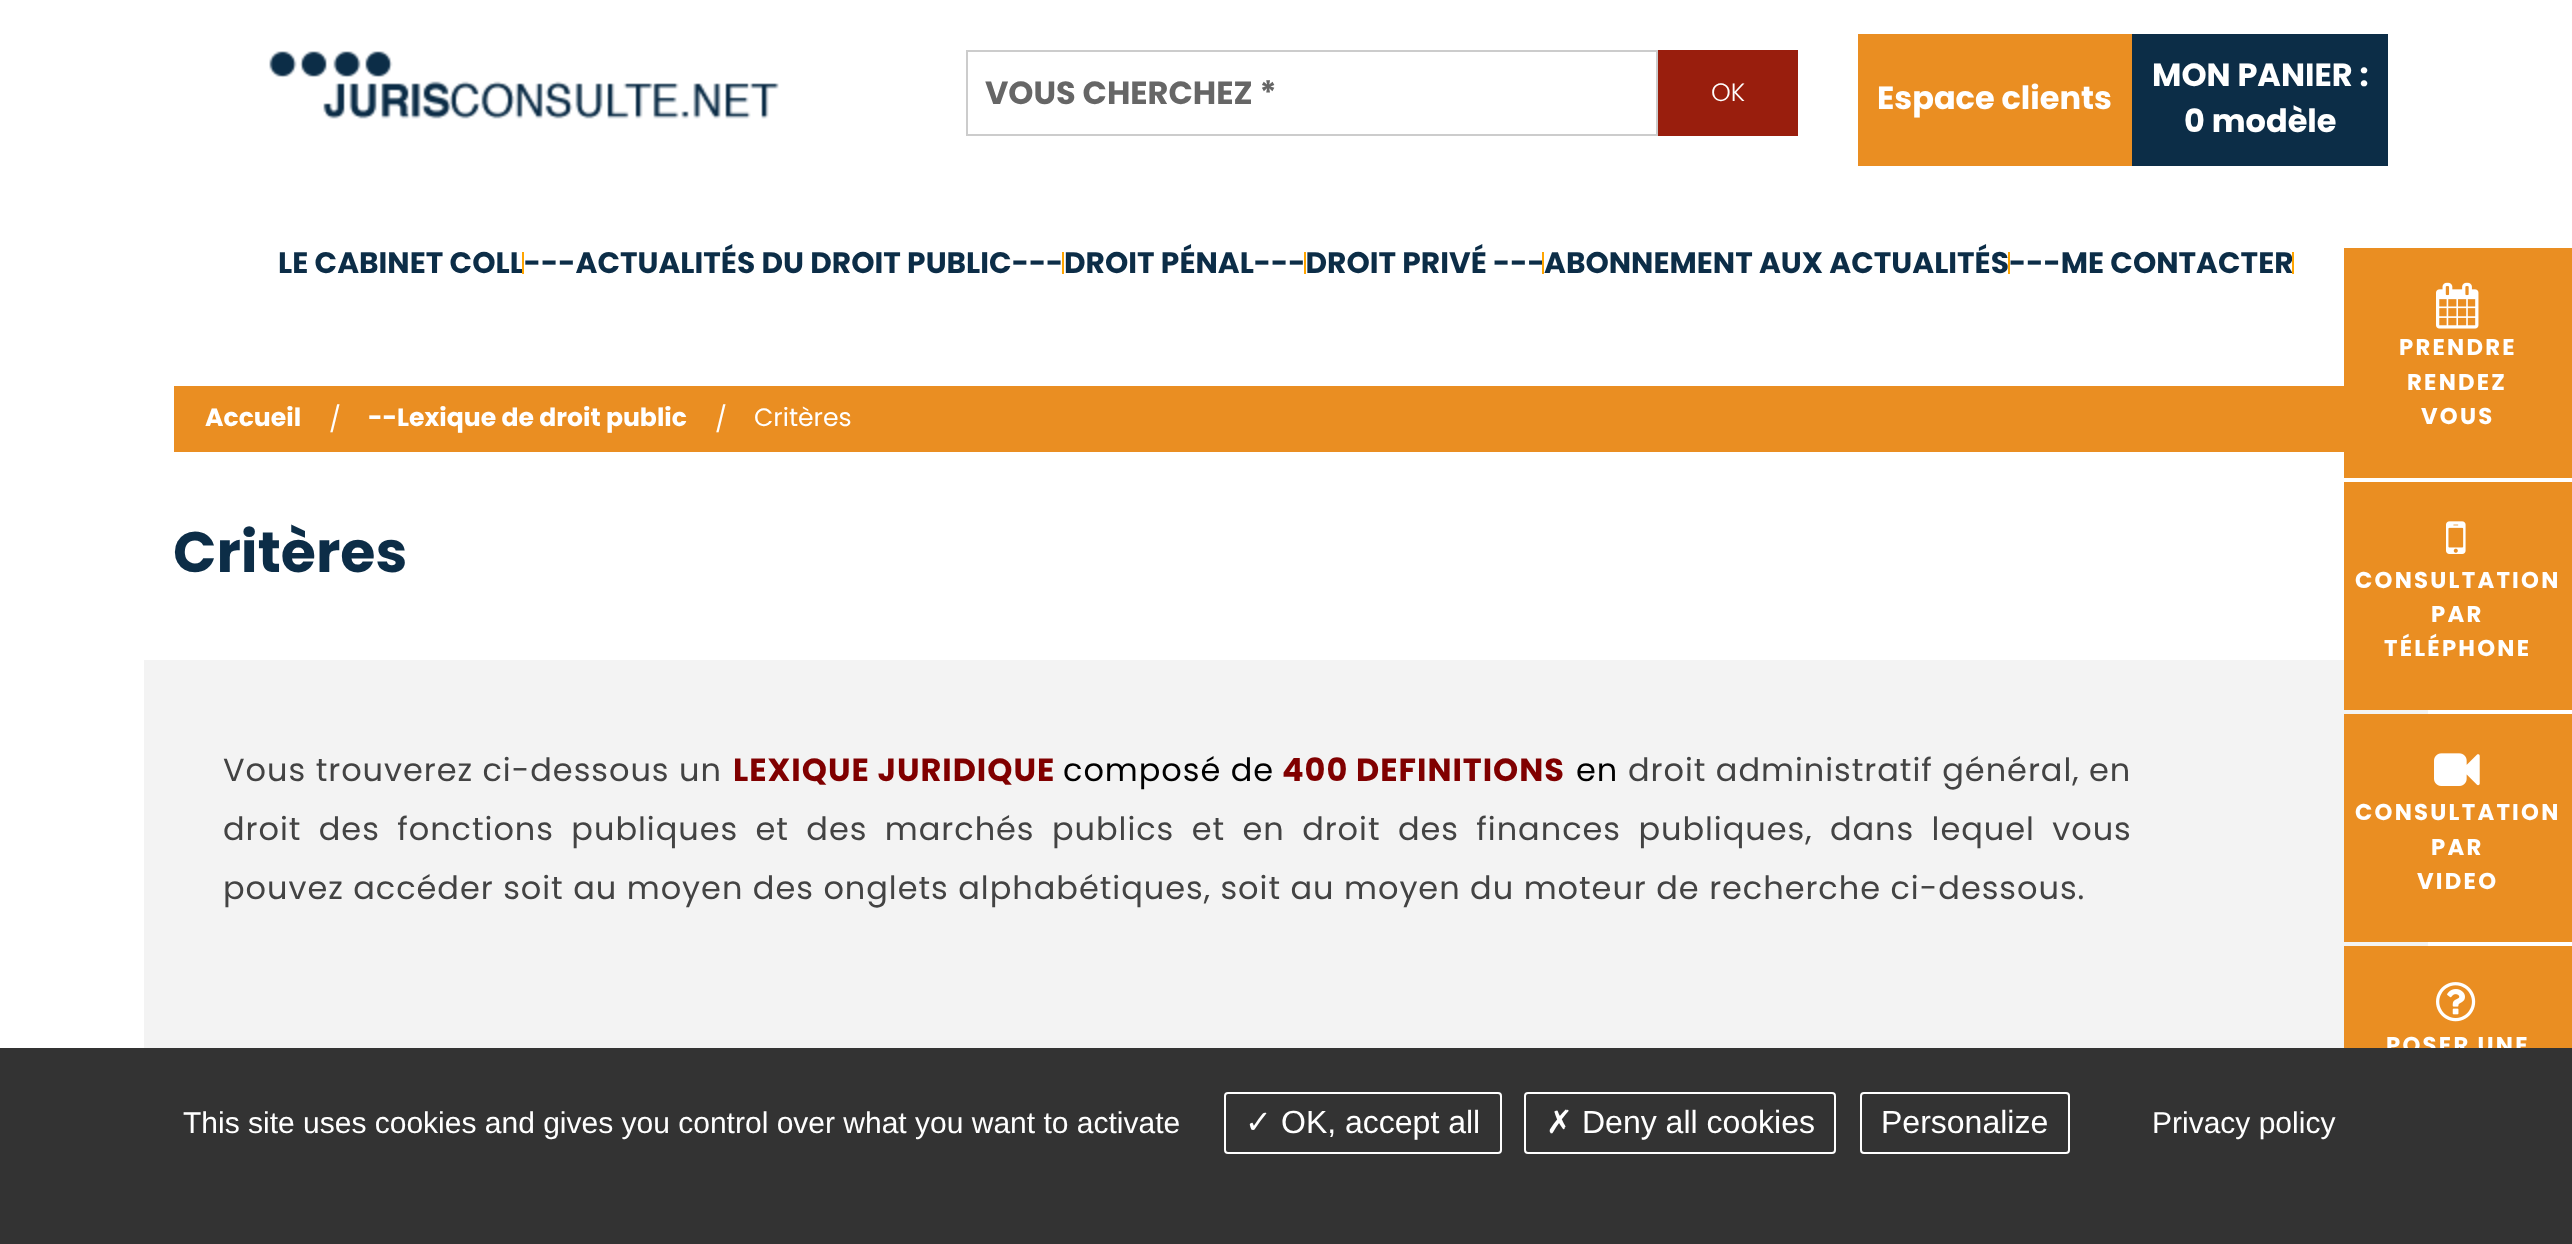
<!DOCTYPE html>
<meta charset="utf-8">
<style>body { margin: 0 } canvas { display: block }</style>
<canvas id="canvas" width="2572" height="1244"></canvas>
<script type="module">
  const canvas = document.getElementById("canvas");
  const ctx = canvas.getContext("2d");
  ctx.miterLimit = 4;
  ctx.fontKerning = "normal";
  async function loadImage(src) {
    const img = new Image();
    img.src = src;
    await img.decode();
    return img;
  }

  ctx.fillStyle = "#ffffff";
  ctx.fillRect(0, 0, 2572, 1244);
  ctx.drawImage(await loadImage("img1.png"), 269, 51, 510, 68);
  ctx.strokeStyle = "#cccccc";
  ctx.lineWidth = 2;
  ctx.strokeRect(967, 51, 690, 84);
  ctx.font = "bold 32px Poppins";
  ctx.fillStyle = "#666666";
  ctx.fillText("VOUS CHERCHEZ *", 985, 104);
  ctx.fillStyle = "#991e0d";
  ctx.fillRect(1658, 50, 140, 86);
  ctx.font = "300 25.1px Poppins";
  ctx.fillStyle = "#ffffff";
  ctx.fillText("OK", 1711, 101);
  ctx.fillStyle = "#ea8e22";
  ctx.fillRect(1858, 34, 274, 132);
  ctx.font = "bold 32px Poppins";
  ctx.fillStyle = "#ffffff";
  ctx.fillText("Espace clients", 1877, 109);
  ctx.fillStyle = "#0c2d47";
  ctx.fillRect(2132, 34, 256, 132);
  ctx.fillStyle = "#ffffff";
  ctx.fillText("MON PANIER :", 2152, 86);
  ctx.fillText("0 modèle", 2184, 132);
  ctx.font = "bold 29.7px Poppins";
  ctx.fillStyle = "#0c2d47";
  ctx.fillText("LE CABINET COLL---ACTUALITÉS DU DROIT PUBLIC---", 278, 273);
  ctx.fillStyle = "#ffa500";
  ctx.fillRect(522, 252, 2, 22);
  ctx.fillRect(1062, 252, 2, 22);
  ctx.fillStyle = "#0c2d47";
  ctx.fillText("DROIT PÉNAL---DROIT PRIVÉ ---", 1064, 273);
  ctx.fillStyle = "#ffa500";
  ctx.fillRect(1304, 252, 2, 22);
  ctx.fillRect(1542, 252, 2, 22);
  ctx.fillStyle = "#0c2d47";
  ctx.fillText("ABONNEMENT AUX ACTUALITÉS", 1544, 273);
  ctx.fillStyle = "#ffa500";
  ctx.fillRect(2008, 252, 2, 22);
  ctx.fillStyle = "#0c2d47";
  ctx.fillText("---ME CONTACTER", 2009, 273);
  ctx.fillStyle = "#ffa500";
  ctx.fillRect(2292, 252, 2, 22);
  ctx.fillStyle = "#ea8e22";
  ctx.fillRect(174, 386, 2170, 66);
  ctx.font = "bold 25.1px Poppins";
  ctx.fillStyle = "#ffffff";
  ctx.fillText("Accueil", 205, 426);
  ctx.font = "25.1px Poppins";
  ctx.fillText("/", 329, 428);
  ctx.font = "bold 25.1px Poppins";
  ctx.fillText("--Lexique de droit public", 368, 426);
  ctx.font = "25.1px Poppins";
  ctx.fillText("/", 715, 428);
  ctx.fillText("Critères", 754, 426);
  ctx.font = "bold 57px Poppins";
  ctx.fillStyle = "#0c2d47";
  ctx.fillText("Critères", 173, 572);
  ctx.fillStyle = "#ea8e22";
  ctx.fillRect(2344, 248, 228, 230);
  ctx.drawImage(await loadImage("img2.png"), 2436, 282, 43, 47);
  ctx.letterSpacing = "2.25px";
  ctx.font = "bold 22.75px Poppins";
  ctx.fillStyle = "#ffffff";
  ctx.fillText("PRENDRE", 2399, 355);
  ctx.fillText("RENDEZ", 2407, 390);
  ctx.fillText("VOUS", 2421, 424);
  ctx.fillStyle = "#f3f3f3";
  ctx.fillRect(144, 660, 2284, 388);
  ctx.fillStyle = "#ea8e22";
  ctx.fillRect(2344, 482, 228, 228);
  ctx.drawImage(await loadImage("img3.png"), 2446, 521, 20, 33);
  ctx.fillStyle = "#ffffff";
  ctx.fillText("CONSULTATION", 2355, 588);
  ctx.fillText("PAR", 2431, 622);
  ctx.fillText("TÉLÉPHONE", 2384, 656);
  ctx.fillStyle = "#ea8e22";
  ctx.fillRect(2344, 714, 228, 228);
  ctx.drawImage(await loadImage("img4.png"), 2434, 753, 46, 33);
  ctx.fillStyle = "#ffffff";
  ctx.fillText("CONSULTATION", 2355, 820);
  ctx.fillText("PAR", 2431, 855);
  ctx.fillText("VIDEO", 2417, 889);
  ctx.fillStyle = "#ea8e22";
  ctx.fillRect(2344, 946, 228, 102);
  ctx.drawImage(await loadImage("img5.png"), 2436, 982, 40, 40);
  ctx.fillStyle = "#ffffff";
  ctx.fillText("POSER UNE", 2386, 1053);
  ctx.letterSpacing = "0.96px";
  ctx.font = "32px Poppins";
  ctx.fillStyle = "#434343";
  ctx.fillText("Vous trouverez ci-dessous un", 223, 781);
  ctx.font = "bold 32px Poppins";
  ctx.fillStyle = "#800000";
  ctx.fillText("LEXIQUE JURIDIQUE", 733, 781);
  ctx.font = "32px Poppins";
  ctx.fillStyle = "#000000";
  ctx.fillText("composé de", 1063, 781);
  ctx.font = "bold 32px Poppins";
  ctx.fillStyle = "#800000";
  ctx.fillText("400 DEFINITIONS", 1282, 781);
  ctx.font = "32px Poppins";
  ctx.fillStyle = "#000000";
  ctx.fillText("en", 1576, 781);
  ctx.fillStyle = "#434343";
  ctx.fillText("droit administratif général, en", 1628, 781);
  ctx.wordSpacing = "7.9px";
  ctx.fillText("droit des fonctions publiques et des marchés publics et en droit des finances publiques, dans lequel vous", 223, 840);
  ctx.wordSpacing = "0px";
  ctx.fillText("pouvez accéder soit au moyen des onglets alphabétiques, soit au moyen du moteur de recherche ci-dessous.", 223, 899);
  ctx.fillStyle = "#333333";
  ctx.fillRect(0, 1048, 2572, 196);
  ctx.letterSpacing = "0px";
  ctx.font = "30px Liberation Sans";
  ctx.fillStyle = "#ffffff";
  ctx.fillText("This site uses cookies and gives you control over what you want to activate", 183, 1133);
  ctx.beginPath();
  ctx.roundRect(1225, 1093, 276, 60, 3);
  ctx.strokeStyle = "#ffffff";
  ctx.stroke();
  ctx.font = "32px DejaVu Sans";
  ctx.fillText("✓", 1245, 1133);
  ctx.font = "32px Liberation Sans";
  ctx.fillText("OK, accept all", 1281, 1133);
  ctx.beginPath();
  ctx.roundRect(1525, 1093, 310, 60, 3);
  ctx.stroke();
  ctx.font = "32px DejaVu Sans";
  ctx.fillText("✗", 1546, 1133);
  ctx.font = "32px Liberation Sans";
  ctx.fillText("Deny all cookies", 1582, 1133);
  ctx.beginPath();
  ctx.roundRect(1861, 1093, 208, 60, 3);
  ctx.stroke();
  ctx.fillText("Personalize", 1881, 1133);
  ctx.font = "30px Liberation Sans";
  ctx.fillText("Privacy policy", 2152, 1133);
</script>
